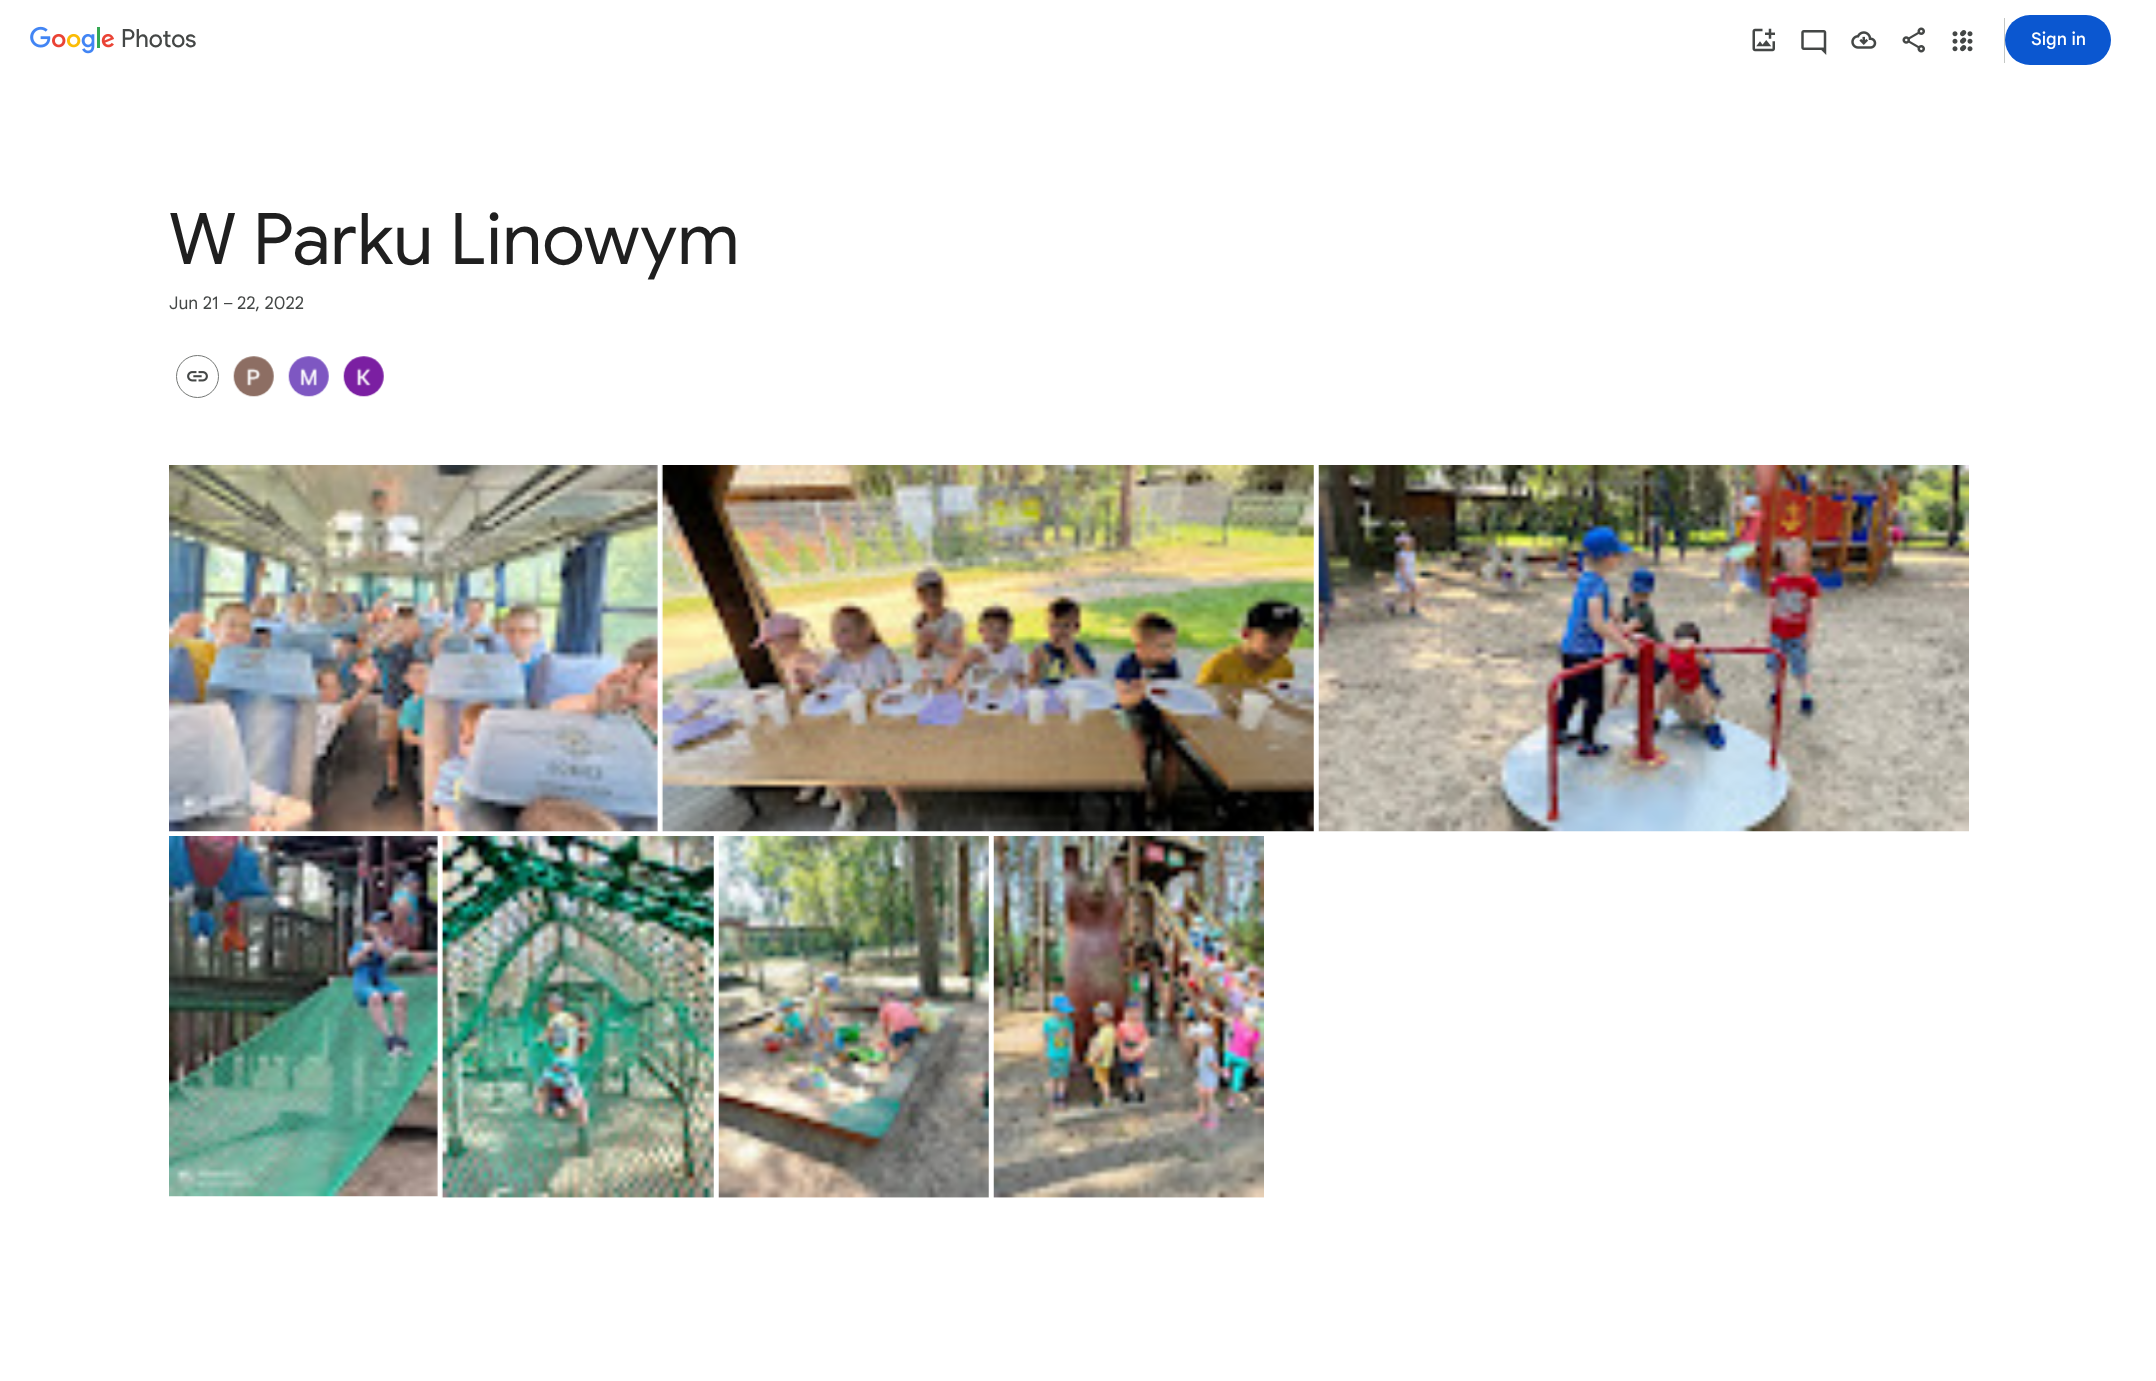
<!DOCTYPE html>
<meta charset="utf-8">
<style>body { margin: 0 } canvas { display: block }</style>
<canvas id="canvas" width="2156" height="1381"></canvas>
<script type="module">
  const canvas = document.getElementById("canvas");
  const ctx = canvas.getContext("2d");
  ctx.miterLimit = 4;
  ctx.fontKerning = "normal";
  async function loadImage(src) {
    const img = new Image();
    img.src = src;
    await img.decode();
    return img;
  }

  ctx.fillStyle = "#ffffff";
  ctx.fillRect(0, 0, 2156, 1381);
  ctx.drawImage(await loadImage("img1.png"), 30, 26, 84, 28);
  ctx.font = "25px Product Sans";
  ctx.fillStyle = "#444746";
  ctx.fillText("Photos", 121, 47);
  ctx.drawImage(await loadImage("img2.png"), 1752, 28, 23, 24);
  ctx.drawImage(await loadImage("img3.png"), 1801, 30, 26, 25);
  ctx.drawImage(await loadImage("img4.png"), 1851, 31, 26, 18);
  ctx.drawImage(await loadImage("img5.png"), 1902, 27, 23, 26);
  ctx.drawImage(await loadImage("img6.png"), 1961, 30, 6, 20);
  ctx.fillStyle = "#c4c7c5";
  ctx.fillRect(2004, 18, 1, 45);
  ctx.font = "71.25px Google Sans";
  ctx.fillStyle = "#1f1f1f";
  ctx.fillText("W Parku Linowym", 169, 264);
  ctx.font = "17.5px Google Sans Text";
  ctx.fillStyle = "#444746";
  ctx.fillText("Jun 21 – 22, 2022", 169, 309);
  ctx.beginPath();
  ctx.arc(197.5, 376.5, 21, 0, Math.PI * 2);
  ctx.strokeStyle = "#747775";
  ctx.stroke();
  ctx.drawImage(await loadImage("img7.png"), 187, 371, 21, 11);
  ctx.drawImage(await loadImage("img8.png"), 233, 356, 41, 41);
  ctx.drawImage(await loadImage("img9.png"), 288, 356, 41, 41);
  ctx.drawImage(await loadImage("img10.png"), 343, 356, 41, 41);
  ctx.drawImage(await loadImage("img11.png"), 169, 465, 489, 367);
  ctx.drawImage(await loadImage("img12.png"), 661, 465, 653, 367);
  ctx.drawImage(await loadImage("img13.png"), 1318, 465, 651, 367);
  ctx.drawImage(await loadImage("img14.png"), 169, 836, 269, 361);
  ctx.drawImage(await loadImage("img15.png"), 441, 836, 273, 362);
  ctx.drawImage(await loadImage("img16.png"), 718, 836, 271, 362);
  ctx.drawImage(await loadImage("img17.png"), 993, 836, 271, 362);
  ctx.drawImage(await loadImage("img18.png"), 1952, 31, 21, 21);
  ctx.fillStyle = "#0b57d0";
  ctx.beginPath();
  ctx.roundRect(2005, 15, 106, 50, 25);
  ctx.fill();
  ctx.font = "500 17.5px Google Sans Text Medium";
  ctx.fillStyle = "#ffffff";
  ctx.fillText("Sign in", 2031, 45);
</script>
